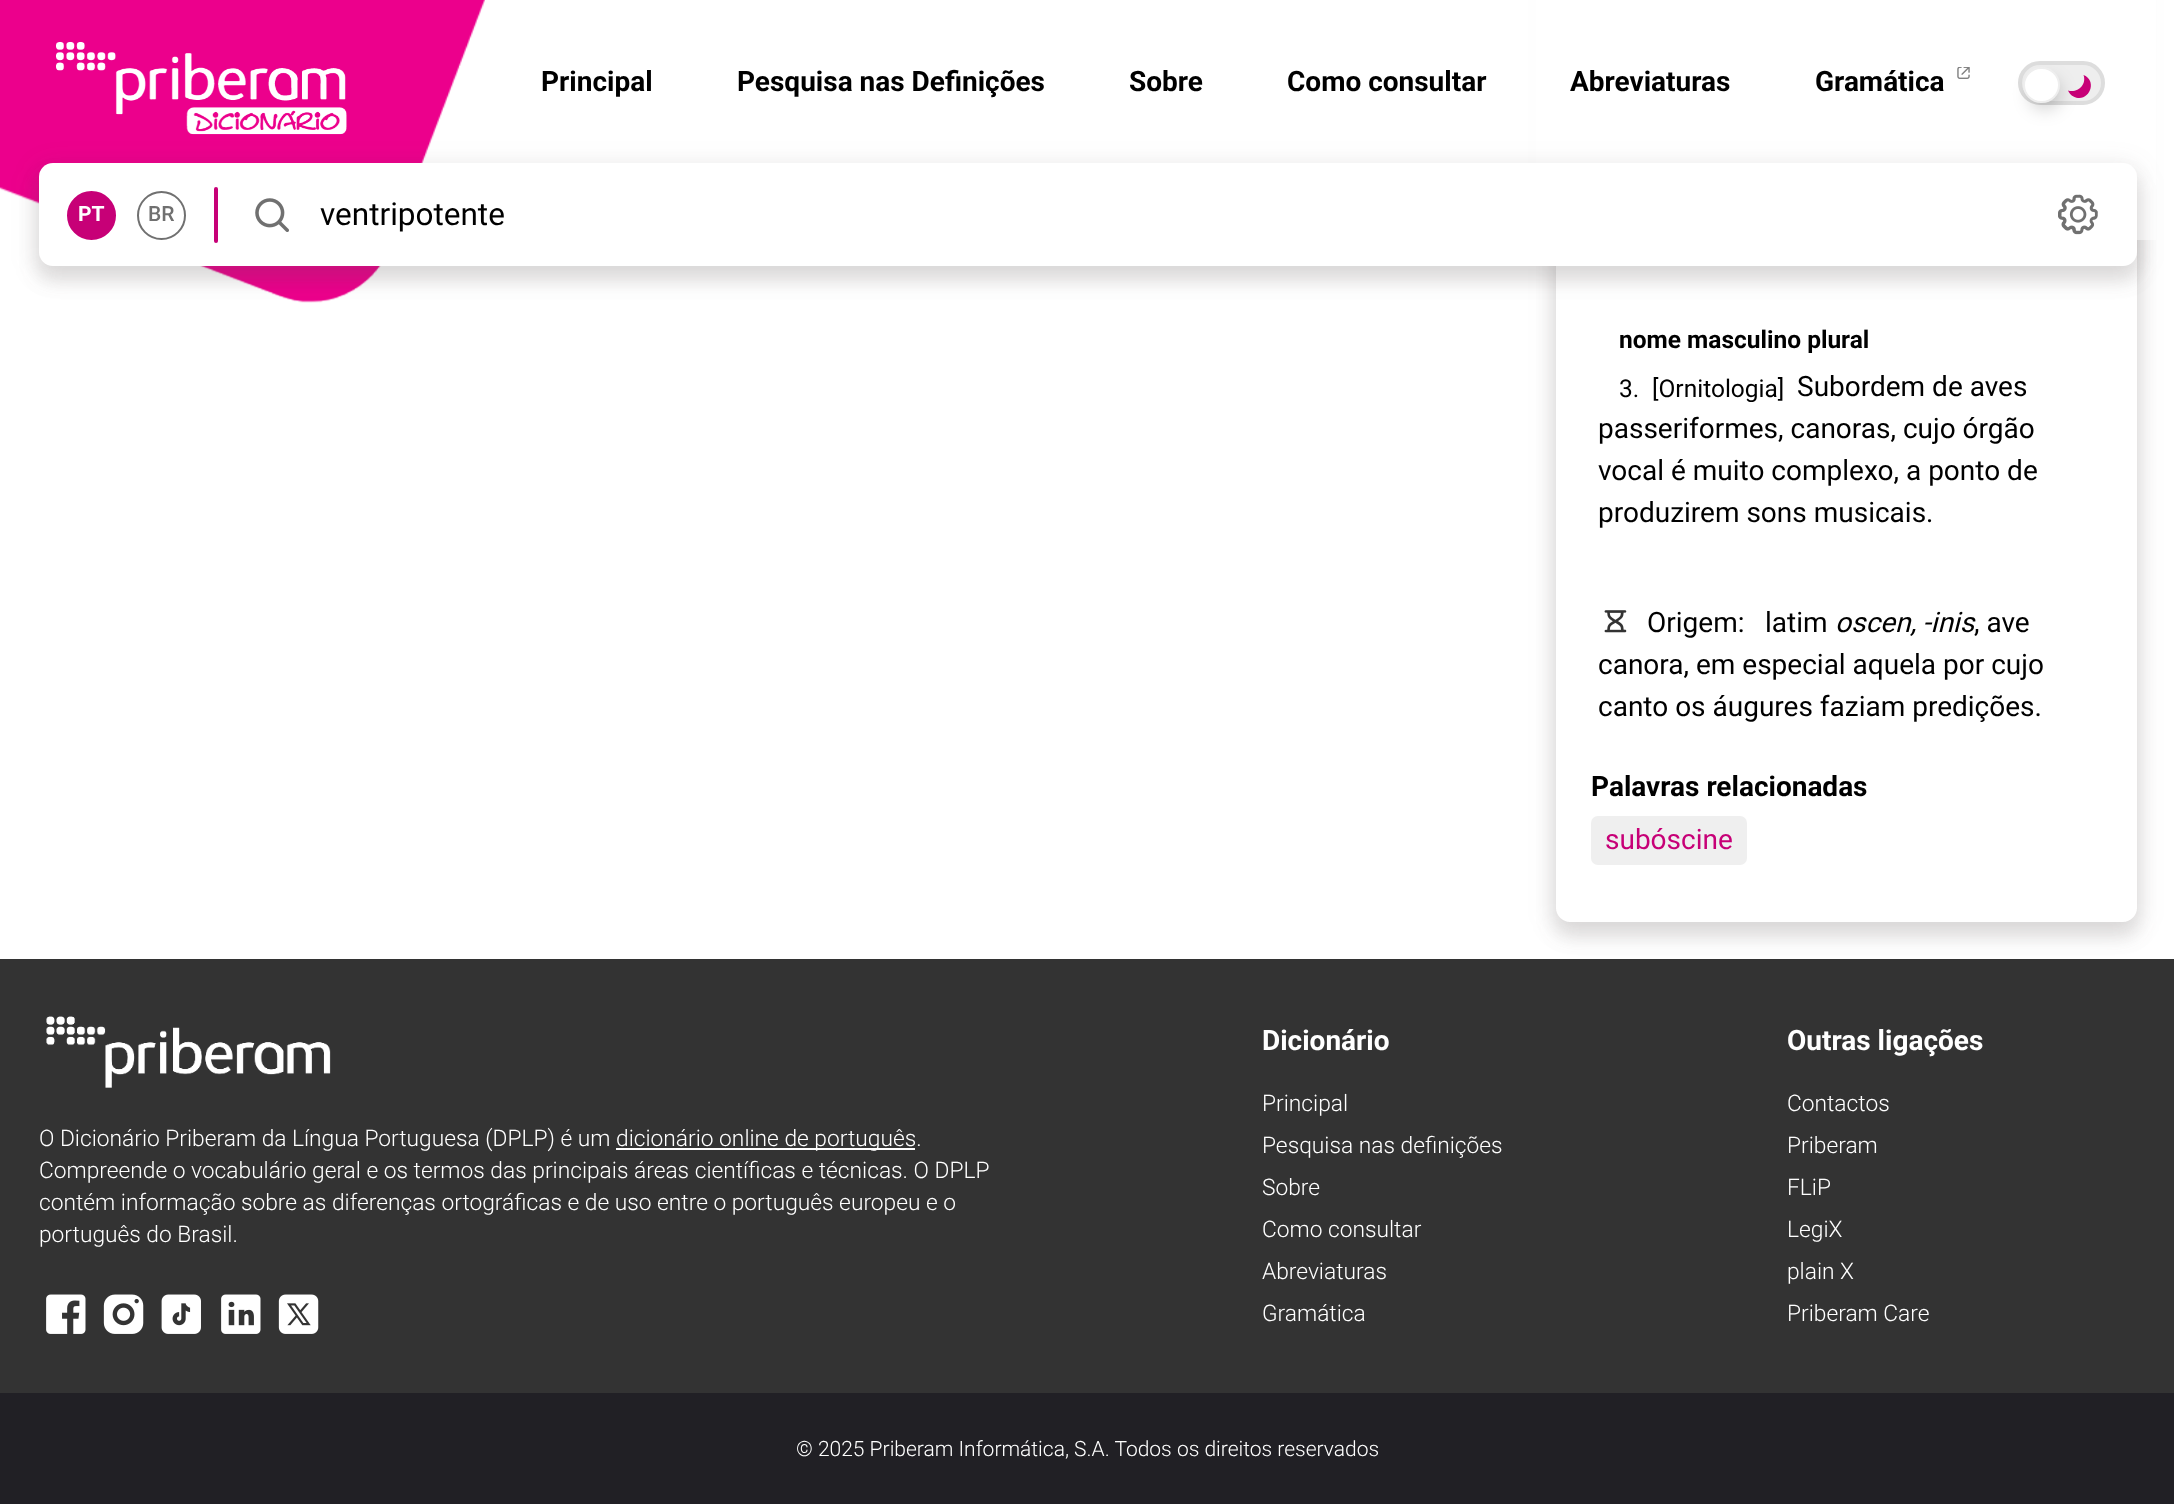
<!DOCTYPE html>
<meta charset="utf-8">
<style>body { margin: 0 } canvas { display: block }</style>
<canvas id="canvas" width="2174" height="1504"></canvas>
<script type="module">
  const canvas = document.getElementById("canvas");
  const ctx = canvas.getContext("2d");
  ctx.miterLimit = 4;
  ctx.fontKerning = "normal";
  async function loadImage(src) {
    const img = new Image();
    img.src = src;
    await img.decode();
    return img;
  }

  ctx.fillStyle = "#ffffff";
  ctx.fillRect(0, 0, 2174, 1504);
  ctx.fillStyle = "#333333";
  ctx.fillRect(0, 959, 2174, 434);
  ctx.save();
  ctx.beginPath();
  ctx.moveTo(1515, 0);
  ctx.lineTo(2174, 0);
  ctx.lineTo(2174, 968);
  ctx.lineTo(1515, 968);
  ctx.closePath();
  ctx.moveTo(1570, -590);
  ctx.lineTo(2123, -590);
  ctx.bezierCurveTo(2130.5, -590, 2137, -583.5, 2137, -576);
  ctx.lineTo(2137, 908);
  ctx.bezierCurveTo(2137, 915.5, 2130.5, 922, 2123, 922);
  ctx.lineTo(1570, 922);
  ctx.bezierCurveTo(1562.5, 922, 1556, 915.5, 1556, 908);
  ctx.lineTo(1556, -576);
  ctx.bezierCurveTo(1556, -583.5, 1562.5, -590, 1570, -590);
  ctx.closePath();
  ctx.clip("evenodd");
  ctx.fillStyle = "rgba(82, 71, 78, 0.12)";
  ctx.filter = "blur(12px)";
  ctx.beginPath();
  ctx.roundRect(1552, -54, 588, 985, 18);
  ctx.fill();
  ctx.filter = "none";
  ctx.restore();
  ctx.save();
  ctx.beginPath();
  ctx.moveTo(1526, 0);
  ctx.lineTo(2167, 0);
  ctx.lineTo(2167, 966);
  ctx.lineTo(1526, 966);
  ctx.closePath();
  ctx.moveTo(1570, -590);
  ctx.lineTo(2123, -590);
  ctx.bezierCurveTo(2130.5, -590, 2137, -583.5, 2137, -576);
  ctx.lineTo(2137, 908);
  ctx.bezierCurveTo(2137, 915.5, 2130.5, 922, 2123, 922);
  ctx.lineTo(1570, 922);
  ctx.bezierCurveTo(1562.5, 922, 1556, 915.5, 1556, 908);
  ctx.lineTo(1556, -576);
  ctx.bezierCurveTo(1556, -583.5, 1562.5, -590, 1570, -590);
  ctx.closePath();
  ctx.clip("evenodd");
  ctx.fillStyle = "rgba(82, 71, 78, 0.12)";
  ctx.filter = "blur(9px)";
  ctx.beginPath();
  ctx.roundRect(1554, -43, 585, 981, 16);
  ctx.fill();
  ctx.filter = "none";
  ctx.restore();
  ctx.fillStyle = "#ffffff";
  ctx.fillRect(1536, 0, 620, 240);
  ctx.drawImage(await loadImage("img6.png"), 200, 266, 181, 37);
  ctx.drawImage(await loadImage("img1.png"), 0, 0, 485, 303);
  ctx.drawImage(await loadImage("img2.png"), 56, 42, 291, 93);
  ctx.font = "bold 28px Roboto";
  ctx.fillStyle = "#000000";
  ctx.fillText("Principal", 541, 91);
  ctx.fillText("Pesquisa nas Definições", 737, 91);
  ctx.fillText("Sobre", 1129, 91);
  ctx.fillText("Como consultar", 1287, 91);
  ctx.fillText("Abreviaturas", 1570, 91);
  ctx.fillText("Gramática", 1815, 91);
  ctx.drawImage(await loadImage("img3.png"), 1957, 67, 13, 12);
  ctx.fillStyle = "#eeeeee";
  ctx.beginPath();
  ctx.roundRect(2020, 63, 83, 40, 20);
  ctx.fill();
  ctx.strokeStyle = "#dddddd";
  ctx.lineWidth = 4;
  ctx.stroke();
  ctx.fillStyle = "#c70077";
  ctx.beginPath();
  ctx.moveTo(2068, 90.5);
  ctx.bezierCurveTo(2069, 93, 2071, 95.5, 2073.5, 96.5);
  ctx.bezierCurveTo(2088.5, 104, 2098.5, 81, 2083.5, 75);
  ctx.bezierCurveTo(2087, 84.5, 2077.5, 93.5, 2068, 90.5);
  ctx.closePath();
  ctx.fill();
  ctx.fillStyle = "rgba(0, 0, 0, 0.2)";
  ctx.filter = "blur(9px)";
  ctx.beginPath();
  ctx.roundRect(2030, 79, 30, 30, 15);
  ctx.fill();
  ctx.filter = "none";
  ctx.fillStyle = "#ffffff";
  ctx.beginPath();
  ctx.roundRect(2024, 68, 35, 34, 17);
  ctx.fill();
  ctx.strokeStyle = "#eeeeee";
  ctx.lineWidth = 2;
  ctx.stroke();
  ctx.fillStyle = "rgba(82, 71, 78, 0.12)";
  ctx.filter = "blur(12px)";
  ctx.beginPath();
  ctx.roundRect(35, 165, 2105, 110, 18);
  ctx.fill();
  ctx.filter = "none";
  ctx.filter = "blur(9px)";
  ctx.beginPath();
  ctx.roundRect(37, 175, 2102, 107, 16);
  ctx.fill();
  ctx.filter = "none";
  ctx.fillStyle = "#ffffff";
  ctx.beginPath();
  ctx.roundRect(39, 163, 2098, 103, 14);
  ctx.fill();
  ctx.fillStyle = "#c70077";
  ctx.beginPath();
  ctx.arc(91.5, 215.5, 23.5, 0, Math.PI * 2);
  ctx.fill();
  ctx.strokeStyle = "#c70077";
  ctx.stroke();
  ctx.font = "bold 21px Roboto";
  ctx.fillStyle = "#ffffff";
  ctx.fillText("PT", 78, 221);
  ctx.beginPath();
  ctx.arc(161.5, 215.5, 23.5, 0, Math.PI * 2);
  ctx.strokeStyle = "#707070";
  ctx.stroke();
  ctx.font = "500 21px Roboto";
  ctx.fillStyle = "#707070";
  ctx.fillText("BR", 148, 221);
  ctx.fillStyle = "#c70077";
  ctx.beginPath();
  ctx.roundRect(214, 187, 4, 56, 2);
  ctx.fill();
  ctx.drawImage(await loadImage("img4.png"), 255, 198, 34, 34);
  ctx.font = "31.5px Roboto";
  ctx.fillStyle = "#000000";
  ctx.fillText("ventripotente", 320, 225);
  ctx.drawImage(await loadImage("img5.png"), 2058, 194, 40, 41);
  ctx.font = "bold 24.5px Roboto";
  ctx.fillText("nome masculino plural", 1619, 348);
  ctx.font = "24.5px Roboto";
  ctx.fillText("3.", 1619, 397);
  ctx.fillText("[Ornitologia]", 1652, 397);
  ctx.font = "28px Roboto";
  ctx.fillText("Subordem de aves", 1797, 396);
  ctx.fillText("passeriformes, canoras, cujo órgão", 1598, 438);
  ctx.fillText("vocal é muito complexo, a ponto de", 1598, 480);
  ctx.fillText("produzirem sons musicais.", 1598, 522);
  ctx.drawImage(await loadImage("img7.png"), 1604, 610, 23, 23);
  ctx.fillText("Origem:", 1647, 632);
  ctx.fillText("latim", 1765, 632);
  ctx.font = "italic 28px Roboto";
  ctx.fillText("oscen, -inis", 1835, 632);
  ctx.font = "28px Roboto";
  ctx.fillText(", ave", 1974, 632);
  ctx.fillText("canora, em especial aquela por cujo", 1598, 674);
  ctx.fillText("canto os áugures faziam predições.", 1598, 716);
  ctx.font = "bold 28px Roboto";
  ctx.fillText("Palavras relacionadas", 1591, 796);
  ctx.fillStyle = "#efefef";
  ctx.beginPath();
  ctx.roundRect(1591, 816, 156, 49, 7);
  ctx.fill();
  ctx.font = "28px Roboto";
  ctx.fillStyle = "#c70077";
  ctx.fillText("subóscine", 1605, 849);
  ctx.drawImage(await loadImage("img8.png"), 46, 1016, 285, 72);
  ctx.font = "300 22.75px Roboto";
  ctx.fillStyle = "#ffffff";
  ctx.fillText("O Dicionário Priberam da Língua Portuguesa (DPLP) é um", 39, 1146);
  ctx.fillRect(616, 1148, 299, 2);
  ctx.fillText("dicionário online de português.", 616, 1146);
  ctx.fillText("Compreende o vocabulário geral e os termos das principais áreas científicas e técnicas. O DPLP", 39, 1178);
  ctx.fillText("contém informação sobre as diferenças ortográficas e de uso entre o português europeu e o", 39, 1210);
  ctx.fillText("português do Brasil.", 39, 1242);
  ctx.drawImage(await loadImage("img9.png"), 46, 1294, 40, 40);
  ctx.drawImage(await loadImage("img10.png"), 103, 1294, 41, 40);
  ctx.drawImage(await loadImage("img11.png"), 161, 1294, 40, 40);
  ctx.drawImage(await loadImage("img12.png"), 221, 1294, 40, 40);
  ctx.drawImage(await loadImage("img13.png"), 278, 1294, 41, 40);
  ctx.font = "bold 28px Roboto";
  ctx.fillText("Dicionário", 1262, 1050);
  ctx.font = "300 22.75px Roboto";
  ctx.fillText("Principal", 1262, 1111);
  ctx.fillText("Pesquisa nas definições", 1262, 1153);
  ctx.fillText("Sobre", 1262, 1195);
  ctx.fillText("Como consultar", 1262, 1237);
  ctx.fillText("Abreviaturas", 1262, 1279);
  ctx.fillText("Gramática", 1262, 1321);
  ctx.font = "bold 28px Roboto";
  ctx.fillText("Outras ligações", 1787, 1050);
  ctx.font = "300 22.75px Roboto";
  ctx.fillText("Contactos", 1787, 1111);
  ctx.fillText("Priberam", 1787, 1153);
  ctx.fillText("FLiP", 1787, 1195);
  ctx.fillText("LegiX", 1787, 1237);
  ctx.fillText("plain X", 1787, 1279);
  ctx.fillText("Priberam Care", 1787, 1321);
  ctx.fillStyle = "#212025";
  ctx.fillRect(0, 1393, 2174, 111);
  ctx.font = "300 21px Roboto";
  ctx.fillStyle = "#ffffff";
  ctx.fillText("© 2025 Priberam Informática, S.A. Todos os direitos reservados", 796, 1456);
</script>
